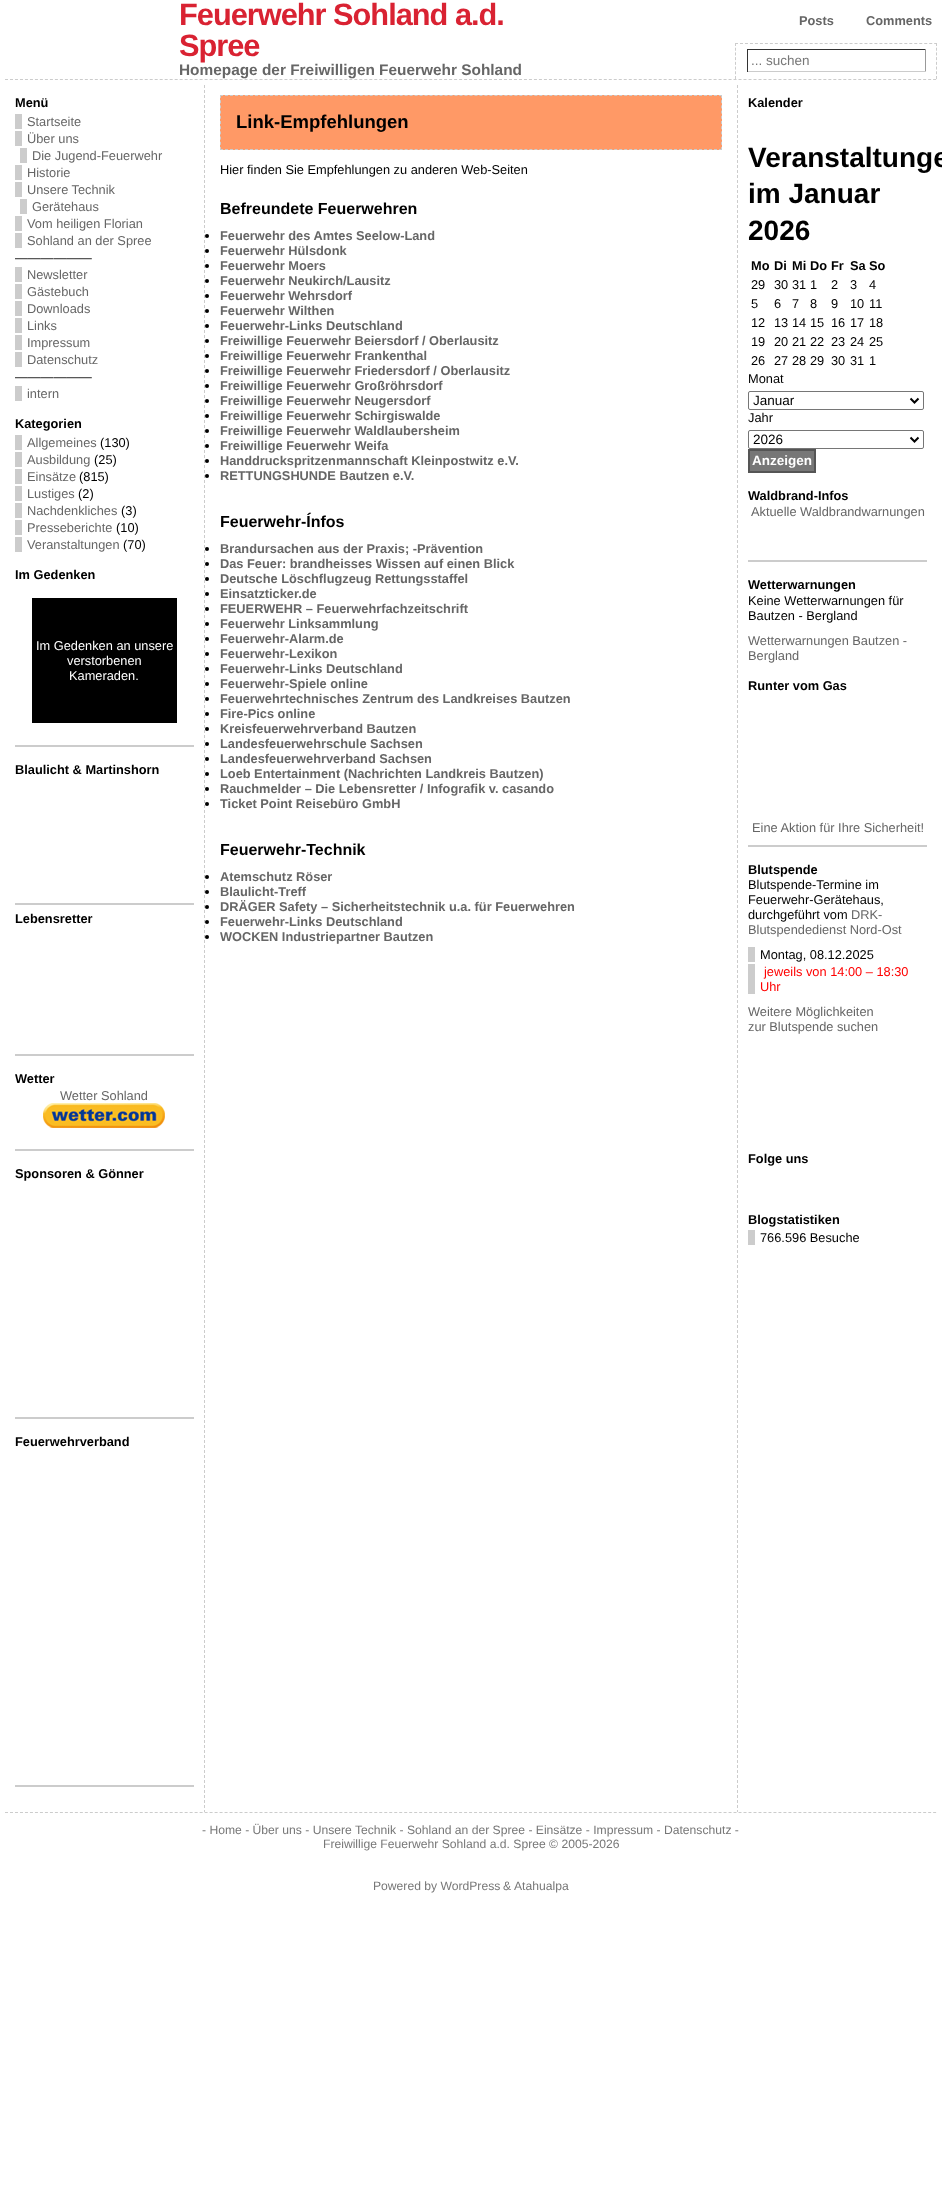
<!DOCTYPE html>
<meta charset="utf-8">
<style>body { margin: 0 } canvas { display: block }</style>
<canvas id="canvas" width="942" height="2203"></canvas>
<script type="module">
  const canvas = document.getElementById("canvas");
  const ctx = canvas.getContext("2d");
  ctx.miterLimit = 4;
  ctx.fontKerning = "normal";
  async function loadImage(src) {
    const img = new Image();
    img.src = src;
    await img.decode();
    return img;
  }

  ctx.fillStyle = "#ffffff";
  ctx.fillRect(0, 0, 942, 2203);
  ctx.letterSpacing = "-1px";
  ctx.font = "bold 30.75px Liberation Sans";
  ctx.fillStyle = "#d92232";
  ctx.fillText("Feuerwehr Sohland a.d.", 179, 25);
  ctx.fillText("Spree", 179, 56);
  ctx.letterSpacing = "0px";
  ctx.font = "bold 15.4px Liberation Sans";
  ctx.fillStyle = "#666666";
  ctx.fillText("Homepage der Freiwilligen Feuerwehr Sohland", 179, 75);
  ctx.font = "bold 12.8px Liberation Sans";
  ctx.fillText("Posts", 799, 25);
  ctx.fillText("Comments", 866, 25);
  ctx.beginPath();
  ctx.moveTo(735, 43.5);
  ctx.lineTo(937, 43.5);
  ctx.strokeStyle = "#cccccc";
  ctx.setLineDash([3, 1.98]);
  ctx.stroke();
  ctx.beginPath();
  ctx.moveTo(936.5, 43);
  ctx.lineTo(936.5, 79);
  ctx.setLineDash([3, 1.71]);
  ctx.stroke();
  ctx.beginPath();
  ctx.moveTo(735.5, 43);
  ctx.lineTo(735.5, 79);
  ctx.stroke();
  ctx.fillStyle = "#333333";
  ctx.fillRect(747, 49, 179, 1);
  ctx.fillStyle = "#999999";
  ctx.fillRect(925, 49, 1, 23);
  ctx.fillStyle = "#cccccc";
  ctx.fillRect(747, 71, 179, 1);
  ctx.fillStyle = "#333333";
  ctx.fillRect(747, 49, 1, 23);
  ctx.font = "13.5px Liberation Sans";
  ctx.fillStyle = "#777777";
  ctx.fillText("... suchen", 751, 65);
  ctx.beginPath();
  ctx.moveTo(5, 79.5);
  ctx.lineTo(937, 79.5);
  ctx.setLineDash([3, 1.99]);
  ctx.stroke();
  ctx.beginPath();
  ctx.moveTo(204.5, 85);
  ctx.lineTo(204.5, 1812);
  ctx.setLineDash([3, 2]);
  ctx.stroke();
  ctx.font = "bold 12.8px Liberation Sans";
  ctx.fillStyle = "#000000";
  ctx.fillText("Menü", 15, 107);
  ctx.fillStyle = "#cccccc";
  ctx.fillRect(15, 114, 7, 15);
  ctx.font = "12.8px Liberation Sans";
  ctx.fillStyle = "#666666";
  ctx.fillText("Startseite", 27, 126);
  ctx.fillStyle = "#cccccc";
  ctx.fillRect(15, 131, 7, 15);
  ctx.fillStyle = "#666666";
  ctx.fillText("Über uns", 27, 143);
  ctx.fillStyle = "#cccccc";
  ctx.fillRect(20, 148, 7, 15);
  ctx.fillStyle = "#666666";
  ctx.fillText("Die Jugend-Feuerwehr", 32, 160);
  ctx.fillStyle = "#cccccc";
  ctx.fillRect(15, 165, 7, 15);
  ctx.fillStyle = "#666666";
  ctx.fillText("Historie", 27, 177);
  ctx.fillStyle = "#cccccc";
  ctx.fillRect(15, 182, 7, 15);
  ctx.fillStyle = "#666666";
  ctx.fillText("Unsere Technik", 27, 194);
  ctx.fillStyle = "#cccccc";
  ctx.fillRect(20, 199, 7, 15);
  ctx.fillStyle = "#666666";
  ctx.fillText("Gerätehaus", 32, 211);
  ctx.fillStyle = "#cccccc";
  ctx.fillRect(15, 216, 7, 15);
  ctx.fillStyle = "#666666";
  ctx.fillText("Vom heiligen Florian", 27, 228);
  ctx.fillStyle = "#cccccc";
  ctx.fillRect(15, 233, 7, 15);
  ctx.fillStyle = "#666666";
  ctx.fillText("Sohland an der Spree", 27, 245);
  ctx.fillStyle = "#000000";
  ctx.fillText("——————", 15, 262);
  ctx.fillStyle = "#cccccc";
  ctx.fillRect(15, 267, 7, 15);
  ctx.fillStyle = "#666666";
  ctx.fillText("Newsletter", 27, 279);
  ctx.fillStyle = "#cccccc";
  ctx.fillRect(15, 284, 7, 15);
  ctx.fillStyle = "#666666";
  ctx.fillText("Gästebuch", 27, 296);
  ctx.fillStyle = "#cccccc";
  ctx.fillRect(15, 301, 7, 15);
  ctx.fillStyle = "#666666";
  ctx.fillText("Downloads", 27, 313);
  ctx.fillStyle = "#cccccc";
  ctx.fillRect(15, 318, 7, 15);
  ctx.fillStyle = "#666666";
  ctx.fillText("Links", 27, 330);
  ctx.fillStyle = "#cccccc";
  ctx.fillRect(15, 335, 7, 15);
  ctx.fillStyle = "#666666";
  ctx.fillText("Impressum", 27, 347);
  ctx.fillStyle = "#cccccc";
  ctx.fillRect(15, 352, 7, 15);
  ctx.fillStyle = "#666666";
  ctx.fillText("Datenschutz", 27, 364);
  ctx.fillStyle = "#000000";
  ctx.fillText("——————", 15, 381);
  ctx.fillStyle = "#cccccc";
  ctx.fillRect(15, 386, 7, 15);
  ctx.fillStyle = "#666666";
  ctx.fillText("intern", 27, 398);
  ctx.font = "bold 12.8px Liberation Sans";
  ctx.fillStyle = "#000000";
  ctx.fillText("Kategorien", 15, 428);
  ctx.font = "12.8px Liberation Sans";
  ctx.fillStyle = "#666666";
  ctx.fillText("Allgemeines", 27, 447);
  ctx.fillStyle = "#cccccc";
  ctx.fillRect(15, 435, 7, 15);
  ctx.fillStyle = "#000000";
  ctx.fillText("(130)", 100, 447);
  ctx.fillStyle = "#666666";
  ctx.fillText("Ausbildung", 27, 464);
  ctx.fillStyle = "#cccccc";
  ctx.fillRect(15, 452, 7, 15);
  ctx.fillStyle = "#000000";
  ctx.fillText("(25)", 94, 464);
  ctx.fillStyle = "#666666";
  ctx.fillText("Einsätze", 27, 481);
  ctx.fillStyle = "#cccccc";
  ctx.fillRect(15, 469, 7, 15);
  ctx.fillStyle = "#000000";
  ctx.fillText("(815)", 79, 481);
  ctx.fillStyle = "#666666";
  ctx.fillText("Lustiges", 27, 498);
  ctx.fillStyle = "#cccccc";
  ctx.fillRect(15, 486, 7, 15);
  ctx.fillStyle = "#000000";
  ctx.fillText("(2)", 78, 498);
  ctx.fillStyle = "#666666";
  ctx.fillText("Nachdenkliches", 27, 515);
  ctx.fillStyle = "#cccccc";
  ctx.fillRect(15, 503, 7, 15);
  ctx.fillStyle = "#000000";
  ctx.fillText("(3)", 121, 515);
  ctx.fillStyle = "#666666";
  ctx.fillText("Presseberichte", 27, 532);
  ctx.fillStyle = "#cccccc";
  ctx.fillRect(15, 520, 7, 15);
  ctx.fillStyle = "#000000";
  ctx.fillText("(10)", 116, 532);
  ctx.fillStyle = "#666666";
  ctx.fillText("Veranstaltungen", 27, 549);
  ctx.fillStyle = "#cccccc";
  ctx.fillRect(15, 537, 7, 15);
  ctx.fillStyle = "#000000";
  ctx.fillText("(70)", 123, 549);
  ctx.font = "bold 12.8px Liberation Sans";
  ctx.fillText("Im Gedenken", 15, 579);
  ctx.fillRect(32, 598, 145, 125);
  ctx.font = "12.8px Liberation Sans";
  ctx.fillStyle = "#ffffff";
  ctx.fillText("Im Gedenken an unsere", 36, 650);
  ctx.fillText("verstorbenen", 67, 665);
  ctx.fillText("Kameraden.", 69, 680);
  ctx.fillStyle = "#cccccc";
  ctx.fillRect(15, 745, 179, 2);
  ctx.font = "bold 12.8px Liberation Sans";
  ctx.fillStyle = "#000000";
  ctx.fillText("Blaulicht & Martinshorn", 15, 774);
  ctx.fillStyle = "#cccccc";
  ctx.fillRect(15, 903, 179, 2);
  ctx.fillStyle = "#000000";
  ctx.fillText("Lebensretter", 15, 923);
  ctx.fillStyle = "#cccccc";
  ctx.fillRect(15, 1054, 179, 2);
  ctx.fillStyle = "#000000";
  ctx.fillText("Wetter", 15, 1083);
  ctx.font = "12.8px Liberation Sans";
  ctx.fillStyle = "#666666";
  ctx.fillText("Wetter Sohland", 60, 1100);
  ctx.drawImage(await loadImage("img1.png"), 43, 1103, 122, 25);
  ctx.fillStyle = "#cccccc";
  ctx.fillRect(15, 1149, 179, 2);
  ctx.font = "bold 12.8px Liberation Sans";
  ctx.fillStyle = "#000000";
  ctx.fillText("Sponsoren & Gönner", 15, 1178);
  ctx.fillStyle = "#cccccc";
  ctx.fillRect(15, 1417, 179, 2);
  ctx.fillStyle = "#000000";
  ctx.fillText("Feuerwehrverband", 15, 1446);
  ctx.fillStyle = "#cccccc";
  ctx.fillRect(15, 1785, 179, 2);
  ctx.fillStyle = "#ff9966";
  ctx.fillRect(220, 95, 502, 55);
  ctx.beginPath();
  ctx.moveTo(220, 95.5);
  ctx.lineTo(722, 95.5);
  ctx.setLineDash([3, 1.99]);
  ctx.stroke();
  ctx.beginPath();
  ctx.moveTo(721.5, 95);
  ctx.lineTo(721.5, 150);
  ctx.setLineDash([3, 2.2]);
  ctx.stroke();
  ctx.beginPath();
  ctx.moveTo(220, 149.5);
  ctx.lineTo(722, 149.5);
  ctx.setLineDash([3, 1.99]);
  ctx.stroke();
  ctx.beginPath();
  ctx.moveTo(220.5, 95);
  ctx.lineTo(220.5, 150);
  ctx.setLineDash([3, 2.2]);
  ctx.stroke();
  ctx.font = "bold 18.5px Liberation Sans";
  ctx.fillStyle = "#000000";
  ctx.fillText("Link-Empfehlungen", 236, 128);
  ctx.font = "12.8px Liberation Sans";
  ctx.fillText("Hier finden Sie Empfehlungen zu anderen Web-Seiten", 220, 174);
  ctx.font = "bold 16px Liberation Sans";
  ctx.fillText("Befreundete Feuerwehren", 220, 214);
  ctx.beginPath();
  ctx.arc(207, 236, 2, 0, Math.PI * 2);
  ctx.fill();
  ctx.font = "bold 12.8px Liberation Sans";
  ctx.fillStyle = "#666666";
  ctx.fillText("Feuerwehr des Amtes Seelow-Land", 220, 240);
  ctx.fillStyle = "#000000";
  ctx.beginPath();
  ctx.arc(207, 251, 2, 0, Math.PI * 2);
  ctx.fill();
  ctx.fillStyle = "#666666";
  ctx.fillText("Feuerwehr Hülsdonk", 220, 255);
  ctx.fillStyle = "#000000";
  ctx.beginPath();
  ctx.arc(207, 266, 2, 0, Math.PI * 2);
  ctx.fill();
  ctx.fillStyle = "#666666";
  ctx.fillText("Feuerwehr Moers", 220, 270);
  ctx.fillStyle = "#000000";
  ctx.beginPath();
  ctx.arc(207, 281, 2, 0, Math.PI * 2);
  ctx.fill();
  ctx.fillStyle = "#666666";
  ctx.fillText("Feuerwehr Neukirch/Lausitz", 220, 285);
  ctx.fillStyle = "#000000";
  ctx.beginPath();
  ctx.arc(207, 296, 2, 0, Math.PI * 2);
  ctx.fill();
  ctx.fillStyle = "#666666";
  ctx.fillText("Feuerwehr Wehrsdorf", 220, 300);
  ctx.fillStyle = "#000000";
  ctx.beginPath();
  ctx.arc(207, 311, 2, 0, Math.PI * 2);
  ctx.fill();
  ctx.fillStyle = "#666666";
  ctx.fillText("Feuerwehr Wilthen", 220, 315);
  ctx.fillStyle = "#000000";
  ctx.beginPath();
  ctx.arc(207, 326, 2, 0, Math.PI * 2);
  ctx.fill();
  ctx.fillStyle = "#666666";
  ctx.fillText("Feuerwehr-Links Deutschland", 220, 330);
  ctx.fillStyle = "#000000";
  ctx.beginPath();
  ctx.arc(207, 341, 2, 0, Math.PI * 2);
  ctx.fill();
  ctx.fillStyle = "#666666";
  ctx.fillText("Freiwillige Feuerwehr Beiersdorf / Oberlausitz", 220, 345);
  ctx.fillStyle = "#000000";
  ctx.beginPath();
  ctx.arc(207, 356, 2, 0, Math.PI * 2);
  ctx.fill();
  ctx.fillStyle = "#666666";
  ctx.fillText("Freiwillige Feuerwehr Frankenthal", 220, 360);
  ctx.fillStyle = "#000000";
  ctx.beginPath();
  ctx.arc(207, 371, 2, 0, Math.PI * 2);
  ctx.fill();
  ctx.fillStyle = "#666666";
  ctx.fillText("Freiwillige Feuerwehr Friedersdorf / Oberlausitz", 220, 375);
  ctx.fillStyle = "#000000";
  ctx.beginPath();
  ctx.arc(207, 386, 2, 0, Math.PI * 2);
  ctx.fill();
  ctx.fillStyle = "#666666";
  ctx.fillText("Freiwillige Feuerwehr Großröhrsdorf", 220, 390);
  ctx.fillStyle = "#000000";
  ctx.beginPath();
  ctx.arc(207, 401, 2, 0, Math.PI * 2);
  ctx.fill();
  ctx.fillStyle = "#666666";
  ctx.fillText("Freiwillige Feuerwehr Neugersdorf", 220, 405);
  ctx.fillStyle = "#000000";
  ctx.beginPath();
  ctx.arc(207, 416, 2, 0, Math.PI * 2);
  ctx.fill();
  ctx.fillStyle = "#666666";
  ctx.fillText("Freiwillige Feuerwehr Schirgiswalde", 220, 420);
  ctx.fillStyle = "#000000";
  ctx.beginPath();
  ctx.arc(207, 431, 2, 0, Math.PI * 2);
  ctx.fill();
  ctx.fillStyle = "#666666";
  ctx.fillText("Freiwillige Feuerwehr Waldlaubersheim", 220, 435);
  ctx.fillStyle = "#000000";
  ctx.beginPath();
  ctx.arc(207, 446, 2, 0, Math.PI * 2);
  ctx.fill();
  ctx.fillStyle = "#666666";
  ctx.fillText("Freiwillige Feuerwehr Weifa", 220, 450);
  ctx.fillStyle = "#000000";
  ctx.beginPath();
  ctx.arc(207, 461, 2, 0, Math.PI * 2);
  ctx.fill();
  ctx.fillStyle = "#666666";
  ctx.fillText("Handdruckspritzenmannschaft Kleinpostwitz e.V.", 220, 465);
  ctx.fillStyle = "#000000";
  ctx.beginPath();
  ctx.arc(207, 476, 2, 0, Math.PI * 2);
  ctx.fill();
  ctx.fillStyle = "#666666";
  ctx.fillText("RETTUNGSHUNDE Bautzen e.V.", 220, 480);
  ctx.font = "bold 16px Liberation Sans";
  ctx.fillStyle = "#000000";
  ctx.fillText("Feuerwehr-Ínfos", 220, 527);
  ctx.beginPath();
  ctx.arc(207, 549, 2, 0, Math.PI * 2);
  ctx.fill();
  ctx.font = "bold 12.8px Liberation Sans";
  ctx.fillStyle = "#666666";
  ctx.fillText("Brandursachen aus der Praxis; -Prävention", 220, 553);
  ctx.fillStyle = "#000000";
  ctx.beginPath();
  ctx.arc(207, 564, 2, 0, Math.PI * 2);
  ctx.fill();
  ctx.fillStyle = "#666666";
  ctx.fillText("Das Feuer: brandheisses Wissen auf einen Blick", 220, 568);
  ctx.fillStyle = "#000000";
  ctx.beginPath();
  ctx.arc(207, 579, 2, 0, Math.PI * 2);
  ctx.fill();
  ctx.fillStyle = "#666666";
  ctx.fillText("Deutsche Löschflugzeug Rettungsstaffel", 220, 583);
  ctx.fillStyle = "#000000";
  ctx.beginPath();
  ctx.arc(207, 594, 2, 0, Math.PI * 2);
  ctx.fill();
  ctx.fillStyle = "#666666";
  ctx.fillText("Einsatzticker.de", 220, 598);
  ctx.fillStyle = "#000000";
  ctx.beginPath();
  ctx.arc(207, 609, 2, 0, Math.PI * 2);
  ctx.fill();
  ctx.fillStyle = "#666666";
  ctx.fillText("FEUERWEHR – Feuerwehrfachzeitschrift", 220, 613);
  ctx.fillStyle = "#000000";
  ctx.beginPath();
  ctx.arc(207, 624, 2, 0, Math.PI * 2);
  ctx.fill();
  ctx.fillStyle = "#666666";
  ctx.fillText("Feuerwehr Linksammlung", 220, 628);
  ctx.fillStyle = "#000000";
  ctx.beginPath();
  ctx.arc(207, 639, 2, 0, Math.PI * 2);
  ctx.fill();
  ctx.fillStyle = "#666666";
  ctx.fillText("Feuerwehr-Alarm.de", 220, 643);
  ctx.fillStyle = "#000000";
  ctx.beginPath();
  ctx.arc(207, 654, 2, 0, Math.PI * 2);
  ctx.fill();
  ctx.fillStyle = "#666666";
  ctx.fillText("Feuerwehr-Lexikon", 220, 658);
  ctx.fillStyle = "#000000";
  ctx.beginPath();
  ctx.arc(207, 669, 2, 0, Math.PI * 2);
  ctx.fill();
  ctx.fillStyle = "#666666";
  ctx.fillText("Feuerwehr-Links Deutschland", 220, 673);
  ctx.fillStyle = "#000000";
  ctx.beginPath();
  ctx.arc(207, 684, 2, 0, Math.PI * 2);
  ctx.fill();
  ctx.fillStyle = "#666666";
  ctx.fillText("Feuerwehr-Spiele online", 220, 688);
  ctx.fillStyle = "#000000";
  ctx.beginPath();
  ctx.arc(207, 699, 2, 0, Math.PI * 2);
  ctx.fill();
  ctx.fillStyle = "#666666";
  ctx.fillText("Feuerwehrtechnisches Zentrum des Landkreises Bautzen", 220, 703);
  ctx.fillStyle = "#000000";
  ctx.beginPath();
  ctx.arc(207, 714, 2, 0, Math.PI * 2);
  ctx.fill();
  ctx.fillStyle = "#666666";
  ctx.fillText("Fire-Pics online", 220, 718);
  ctx.fillStyle = "#000000";
  ctx.beginPath();
  ctx.arc(207, 729, 2, 0, Math.PI * 2);
  ctx.fill();
  ctx.fillStyle = "#666666";
  ctx.fillText("Kreisfeuerwehrverband Bautzen", 220, 733);
  ctx.fillStyle = "#000000";
  ctx.beginPath();
  ctx.arc(207, 744, 2, 0, Math.PI * 2);
  ctx.fill();
  ctx.fillStyle = "#666666";
  ctx.fillText("Landesfeuerwehrschule Sachsen", 220, 748);
  ctx.fillStyle = "#000000";
  ctx.beginPath();
  ctx.arc(207, 759, 2, 0, Math.PI * 2);
  ctx.fill();
  ctx.fillStyle = "#666666";
  ctx.fillText("Landesfeuerwehrverband Sachsen", 220, 763);
  ctx.fillStyle = "#000000";
  ctx.beginPath();
  ctx.arc(207, 774, 2, 0, Math.PI * 2);
  ctx.fill();
  ctx.fillStyle = "#666666";
  ctx.fillText("Loeb Entertainment (Nachrichten Landkreis Bautzen)", 220, 778);
  ctx.fillStyle = "#000000";
  ctx.beginPath();
  ctx.arc(207, 789, 2, 0, Math.PI * 2);
  ctx.fill();
  ctx.fillStyle = "#666666";
  ctx.fillText("Rauchmelder – Die Lebensretter / Infografik v. casando", 220, 793);
  ctx.fillStyle = "#000000";
  ctx.beginPath();
  ctx.arc(207, 804, 2, 0, Math.PI * 2);
  ctx.fill();
  ctx.fillStyle = "#666666";
  ctx.fillText("Ticket Point Reisebüro GmbH", 220, 808);
  ctx.font = "bold 16px Liberation Sans";
  ctx.fillStyle = "#000000";
  ctx.fillText("Feuerwehr-Technik", 220, 855);
  ctx.beginPath();
  ctx.arc(207, 877, 2, 0, Math.PI * 2);
  ctx.fill();
  ctx.font = "bold 12.8px Liberation Sans";
  ctx.fillStyle = "#666666";
  ctx.fillText("Atemschutz Röser", 220, 881);
  ctx.fillStyle = "#000000";
  ctx.beginPath();
  ctx.arc(207, 892, 2, 0, Math.PI * 2);
  ctx.fill();
  ctx.fillStyle = "#666666";
  ctx.fillText("Blaulicht-Treff", 220, 896);
  ctx.fillStyle = "#000000";
  ctx.beginPath();
  ctx.arc(207, 907, 2, 0, Math.PI * 2);
  ctx.fill();
  ctx.fillStyle = "#666666";
  ctx.fillText("DRÄGER Safety – Sicherheitstechnik u.a. für Feuerwehren", 220, 911);
  ctx.fillStyle = "#000000";
  ctx.beginPath();
  ctx.arc(207, 922, 2, 0, Math.PI * 2);
  ctx.fill();
  ctx.fillStyle = "#666666";
  ctx.fillText("Feuerwehr-Links Deutschland", 220, 926);
  ctx.fillStyle = "#000000";
  ctx.beginPath();
  ctx.arc(207, 937, 2, 0, Math.PI * 2);
  ctx.fill();
  ctx.fillStyle = "#666666";
  ctx.fillText("WOCKEN Industriepartner Bautzen", 220, 941);
  ctx.beginPath();
  ctx.moveTo(737.5, 85);
  ctx.lineTo(737.5, 1812);
  ctx.setLineDash([3, 2]);
  ctx.stroke();
  ctx.fillStyle = "#000000";
  ctx.fillText("Kalender", 748, 107);
  ctx.font = "bold 28px Liberation Sans";
  ctx.fillText("Veranstaltunge", 748, 167);
  ctx.fillText("im Januar", 748, 203);
  ctx.fillText("2026", 748, 240);
  ctx.font = "bold 12.8px Liberation Sans";
  ctx.fillText("Mo", 751, 270);
  ctx.fillText("Di", 774, 270);
  ctx.fillText("Mi", 792, 270);
  ctx.fillText("Do", 810, 270);
  ctx.fillText("Fr", 831, 270);
  ctx.fillText("Sa", 850, 270);
  ctx.fillText("So", 869, 270);
  ctx.font = "12.8px Liberation Sans";
  ctx.fillText("29", 751, 289);
  ctx.fillText("30", 774, 289);
  ctx.fillText("31", 792, 289);
  ctx.fillText("1", 810, 289);
  ctx.fillText("2", 831, 289);
  ctx.fillText("3", 850, 289);
  ctx.fillText("4", 869, 289);
  ctx.fillText("5", 751, 308);
  ctx.fillText("6", 774, 308);
  ctx.fillText("7", 792, 308);
  ctx.fillText("8", 810, 308);
  ctx.fillText("9", 831, 308);
  ctx.fillText("10", 850, 308);
  ctx.fillText("11", 869, 308);
  ctx.fillText("12", 751, 327);
  ctx.fillText("13", 774, 327);
  ctx.fillText("14", 792, 327);
  ctx.fillText("15", 810, 327);
  ctx.fillText("16", 831, 327);
  ctx.fillText("17", 850, 327);
  ctx.fillText("18", 869, 327);
  ctx.fillText("19", 751, 346);
  ctx.fillText("20", 774, 346);
  ctx.fillText("21", 792, 346);
  ctx.fillText("22", 810, 346);
  ctx.fillText("23", 831, 346);
  ctx.fillText("24", 850, 346);
  ctx.fillText("25", 869, 346);
  ctx.fillText("26", 751, 365);
  ctx.fillText("27", 774, 365);
  ctx.fillText("28", 792, 365);
  ctx.fillText("29", 810, 365);
  ctx.fillText("30", 831, 365);
  ctx.fillText("31", 850, 365);
  ctx.fillText("1", 869, 365);
  ctx.fillText("Monat", 748, 383);
  ctx.beginPath();
  ctx.roundRect(748.5, 391.5, 175, 18, 1.5);
  ctx.strokeStyle = "#767676";
  ctx.setLineDash([]);
  ctx.stroke();
  ctx.beginPath();
  ctx.moveTo(910.5, 398.5);
  ctx.lineTo(914.5, 402.5);
  ctx.lineTo(918.5, 398.5);
  ctx.strokeStyle = "#000000";
  ctx.lineWidth = 2;
  ctx.stroke();
  ctx.font = "13.5px Liberation Sans";
  ctx.fillText("Januar", 753, 405);
  ctx.font = "12.8px Liberation Sans";
  ctx.fillText("Jahr", 748, 422);
  ctx.beginPath();
  ctx.roundRect(748.5, 430.5, 175, 18, 1.5);
  ctx.strokeStyle = "#767676";
  ctx.lineWidth = 1;
  ctx.stroke();
  ctx.beginPath();
  ctx.moveTo(910.5, 437.5);
  ctx.lineTo(914.5, 441.5);
  ctx.lineTo(918.5, 437.5);
  ctx.strokeStyle = "#000000";
  ctx.lineWidth = 2;
  ctx.stroke();
  ctx.font = "13.5px Liberation Sans";
  ctx.fillText("2026", 753, 444);
  ctx.fillStyle = "#777777";
  ctx.beginPath();
  ctx.rect(749, 450, 66, 22);
  ctx.fill();
  ctx.strokeStyle = "#555555";
  ctx.stroke();
  ctx.font = "bold 13.5px Liberation Sans";
  ctx.fillStyle = "#ffffff";
  ctx.fillText("Anzeigen", 752, 465);
  ctx.font = "bold 12.8px Liberation Sans";
  ctx.fillStyle = "#000000";
  ctx.fillText("Waldbrand-Infos", 748, 500);
  ctx.font = "12.8px Liberation Sans";
  ctx.fillStyle = "#666666";
  ctx.fillText("Aktuelle Waldbrandwarnungen", 751, 516);
  ctx.fillStyle = "#cccccc";
  ctx.fillRect(748, 560, 179, 2);
  ctx.font = "bold 12.8px Liberation Sans";
  ctx.fillStyle = "#000000";
  ctx.fillText("Wetterwarnungen", 748, 589);
  ctx.font = "12.8px Liberation Sans";
  ctx.fillText("Keine Wetterwarnungen für", 748, 605);
  ctx.fillText("Bautzen - Bergland", 748, 620);
  ctx.fillStyle = "#666666";
  ctx.fillText("Wetterwarnungen Bautzen -", 748, 645);
  ctx.fillText("Bergland", 748, 660);
  ctx.font = "bold 12.8px Liberation Sans";
  ctx.fillStyle = "#000000";
  ctx.fillText("Runter vom Gas", 748, 690);
  ctx.font = "12.8px Liberation Sans";
  ctx.fillStyle = "#666666";
  ctx.fillText("Eine Aktion für Ihre Sicherheit!", 752, 832);
  ctx.fillStyle = "#cccccc";
  ctx.fillRect(748, 845, 179, 2);
  ctx.font = "bold 12.8px Liberation Sans";
  ctx.fillStyle = "#000000";
  ctx.fillText("Blutspende", 748, 874);
  ctx.font = "12.8px Liberation Sans";
  ctx.fillText("Blutspende-Termine im", 748, 889);
  ctx.fillText("Feuerwehr-Gerätehaus,", 748, 904);
  ctx.fillText("durchgeführt vom", 748, 919);
  ctx.fillStyle = "#666666";
  ctx.fillText("DRK-", 851, 919);
  ctx.fillText("Blutspendedienst Nord-Ost", 748, 934);
  ctx.fillStyle = "#cccccc";
  ctx.fillRect(748, 947, 7, 15);
  ctx.fillStyle = "#000000";
  ctx.fillText("Montag, 08.12.2025", 760, 959);
  ctx.fillStyle = "#cccccc";
  ctx.fillRect(748, 964, 7, 30);
  ctx.fillStyle = "#ff0000";
  ctx.fillText("jeweils von 14:00 – 18:30", 764, 976);
  ctx.fillText("Uhr", 760, 991);
  ctx.fillStyle = "#666666";
  ctx.fillText("Weitere Möglichkeiten", 748, 1016);
  ctx.fillText("zur Blutspende suchen", 748, 1031);
  ctx.font = "bold 12.8px Liberation Sans";
  ctx.fillStyle = "#000000";
  ctx.fillText("Folge uns", 748, 1163);
  ctx.fillText("Blogstatistiken", 748, 1224);
  ctx.fillStyle = "#cccccc";
  ctx.fillRect(748, 1230, 7, 15);
  ctx.font = "12.8px Liberation Sans";
  ctx.fillStyle = "#000000";
  ctx.fillText("766.596 Besuche", 760, 1242);
  ctx.beginPath();
  ctx.moveTo(5, 1812.5);
  ctx.lineTo(937, 1812.5);
  ctx.strokeStyle = "#cccccc";
  ctx.lineWidth = 1;
  ctx.setLineDash([3, 1.99]);
  ctx.stroke();
  ctx.font = "12.15px Liberation Sans";
  ctx.fillStyle = "#777777";
  ctx.fillText("- Home - Über uns - Unsere Technik - Sohland an der Spree - Einsätze - Impressum - Datenschutz -", 202, 1834);
  ctx.fillText("Freiwillige Feuerwehr Sohland a.d. Spree © 2005-2026", 323, 1848);
  ctx.fillText("Powered by WordPress", 373, 1890);
  ctx.fillText("&", 503, 1890);
  ctx.fillText("Atahualpa", 514, 1890);
</script>
